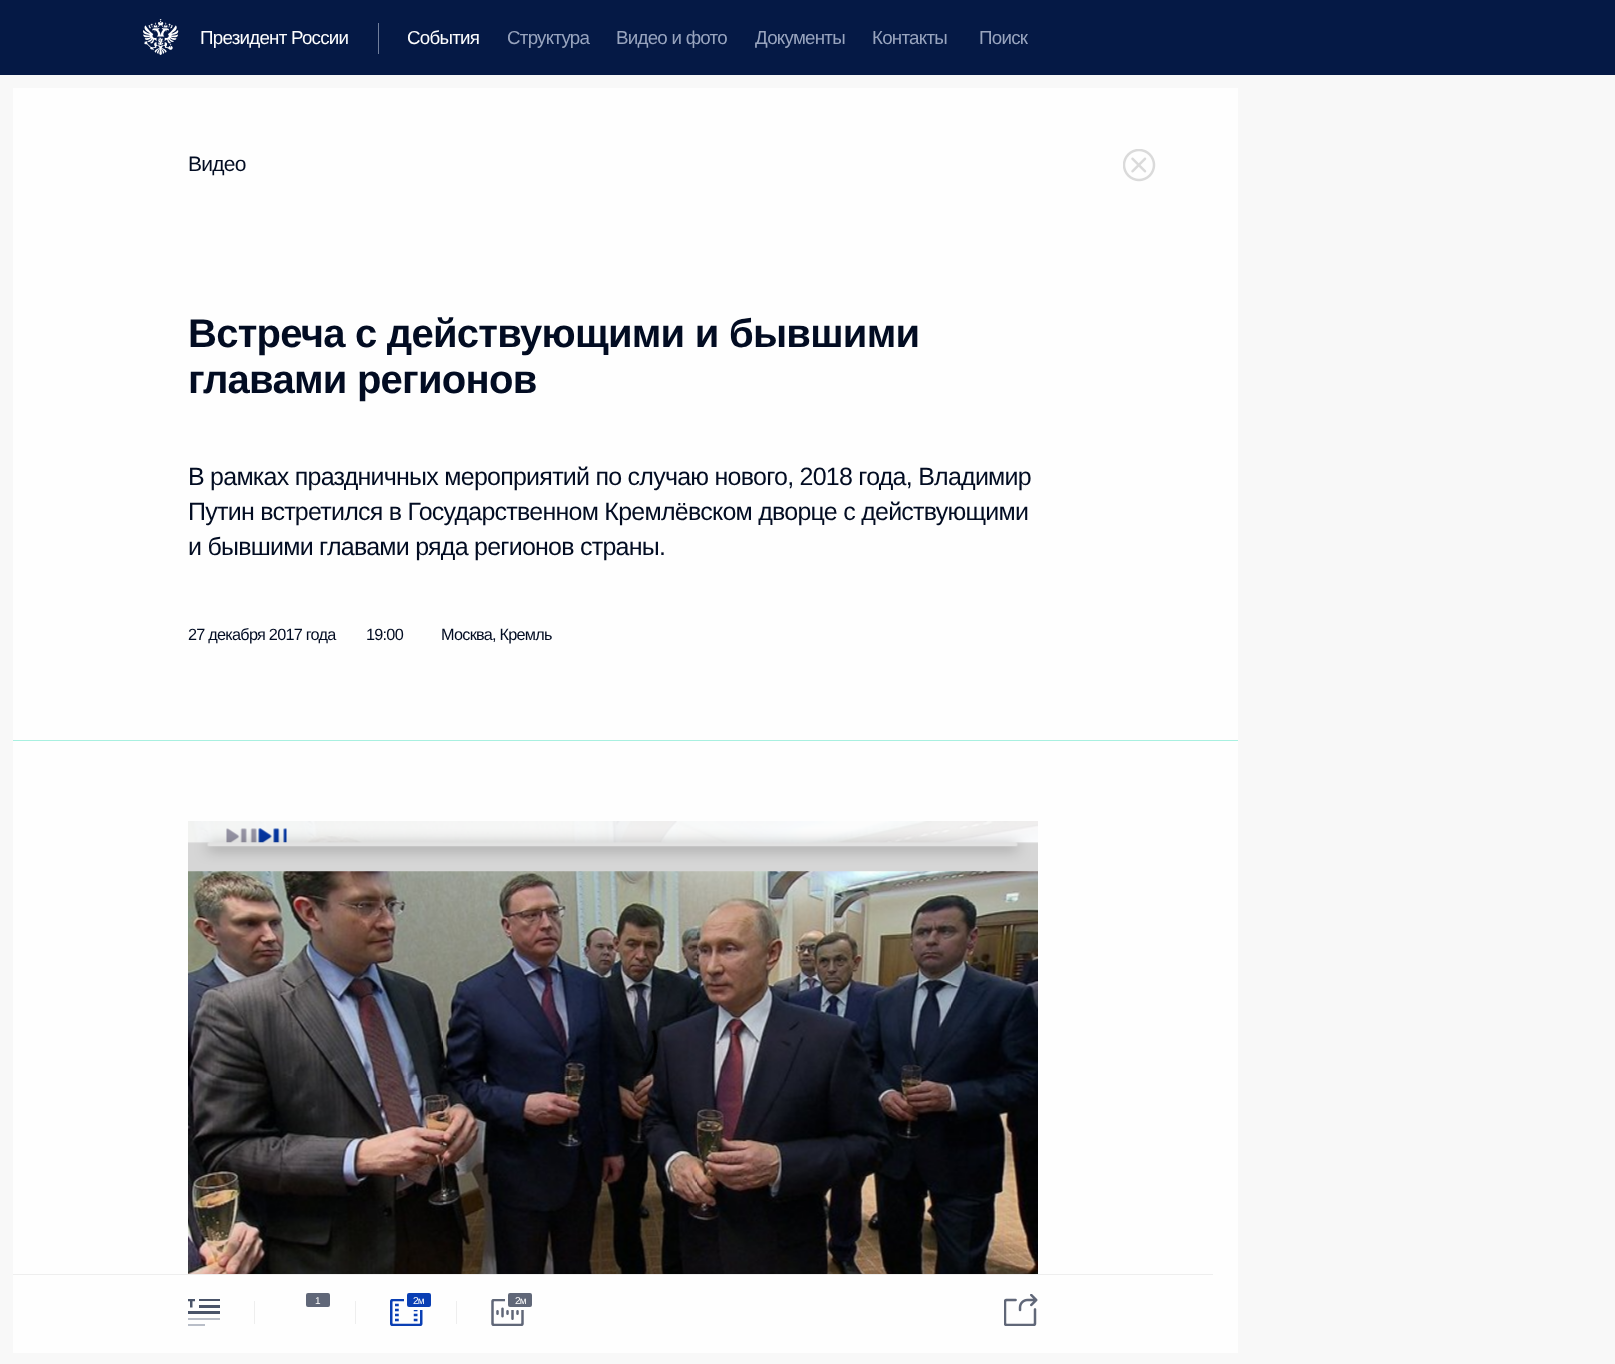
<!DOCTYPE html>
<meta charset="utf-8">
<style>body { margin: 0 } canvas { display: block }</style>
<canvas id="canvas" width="1615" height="1364"></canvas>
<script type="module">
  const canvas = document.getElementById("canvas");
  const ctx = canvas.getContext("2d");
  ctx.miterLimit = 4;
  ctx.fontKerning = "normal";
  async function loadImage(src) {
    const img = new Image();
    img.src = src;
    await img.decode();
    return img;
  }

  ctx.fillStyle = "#f8f8f8";
  ctx.fillRect(0, 0, 1615, 1364);
  ctx.fillStyle = "#051945";
  ctx.fillRect(0, 0, 1615, 75);
  ctx.drawImage(await loadImage("img1.png"), 143, 19, 36, 36);
  ctx.letterSpacing = "-0.75px";
  ctx.font = "18.75px Liberation Sans";
  ctx.fillStyle = "#fefefe";
  ctx.fillText("Президент России", 200, 44);
  ctx.fillStyle = "#707e9c";
  ctx.fillRect(378, 23, 1, 31);
  ctx.fillStyle = "#fefefe";
  ctx.fillText("События", 407, 44);
  ctx.fillStyle = "#98a4be";
  ctx.fillText("Структура", 507, 44);
  ctx.fillText("Видео и фото", 616, 44);
  ctx.fillText("Документы", 755, 44);
  ctx.fillText("Контакты", 872, 44);
  ctx.fillText("Поиск", 979, 44);
  ctx.fillStyle = "#fefefe";
  ctx.fillRect(13, 88, 1225, 1265);
  ctx.fillStyle = "#a8f0e0";
  ctx.fillRect(13, 740, 1225, 1);
  ctx.font = "21px Liberation Sans";
  ctx.fillStyle = "#020c22";
  ctx.fillText("Видео", 188, 171);
  ctx.font = "bold 40px Liberation Sans";
  ctx.fillText("Встреча с действующими и бывшими", 188, 347);
  ctx.fillText("главами регионов", 188, 393);
  ctx.font = "25px Liberation Sans";
  ctx.fillText("В рамках праздничных мероприятий по случаю нового, 2018 года, Владимир", 188, 485);
  ctx.fillText("Путин встретился в Государственном Кремлёвском дворце с действующими", 188, 520);
  ctx.fillText("и бывшими главами ряда регионов страны.", 188, 555);
  ctx.font = "16.25px Liberation Sans";
  ctx.fillText("27 декабря 2017 года", 188, 640);
  ctx.fillText("19:00", 366, 640);
  ctx.fillText("Москва, Кремль", 441, 640);
  ctx.drawImage(await loadImage("img2.png"), 188, 821, 850, 453);
  ctx.drawImage(await loadImage("img3.png"), 1123, 149, 33, 33);
  ctx.fillStyle = "#eeeeee";
  ctx.fillRect(13, 1274, 1200, 1);
  ctx.drawImage(await loadImage("img4.png"), 188, 1299, 32, 27);
  ctx.fillRect(254, 1301, 1, 23);
  ctx.fillStyle = "#606778";
  ctx.beginPath();
  ctx.roundRect(304.5, 1291.5, 27, 17, 3.5);
  ctx.fill();
  ctx.strokeStyle = "#fefefe";
  ctx.lineWidth = 3;
  ctx.stroke();
  ctx.font = "10px Liberation Sans";
  ctx.fillStyle = "#fefefe";
  ctx.fillText("1", 315, 1304);
  ctx.fillStyle = "#eeeeee";
  ctx.fillRect(355, 1301, 1, 23);
  ctx.drawImage(await loadImage("img5.png"), 390, 1299, 33, 27);
  ctx.fillStyle = "#0a3fb4";
  ctx.beginPath();
  ctx.roundRect(405.5, 1291.5, 27, 17, 3.5);
  ctx.fill();
  ctx.stroke();
  ctx.fillStyle = "#fefefe";
  ctx.fillText("2м", 413, 1304);
  ctx.fillStyle = "#eeeeee";
  ctx.fillRect(456, 1301, 1, 23);
  ctx.drawImage(await loadImage("img6.png"), 491, 1299, 33, 27);
  ctx.fillStyle = "#606778";
  ctx.beginPath();
  ctx.roundRect(506.5, 1291.5, 27, 17, 3.5);
  ctx.fill();
  ctx.stroke();
  ctx.fillStyle = "#fefefe";
  ctx.fillText("2м", 515, 1304);
  ctx.drawImage(await loadImage("img7.png"), 1004, 1294, 34, 32);
</script>
